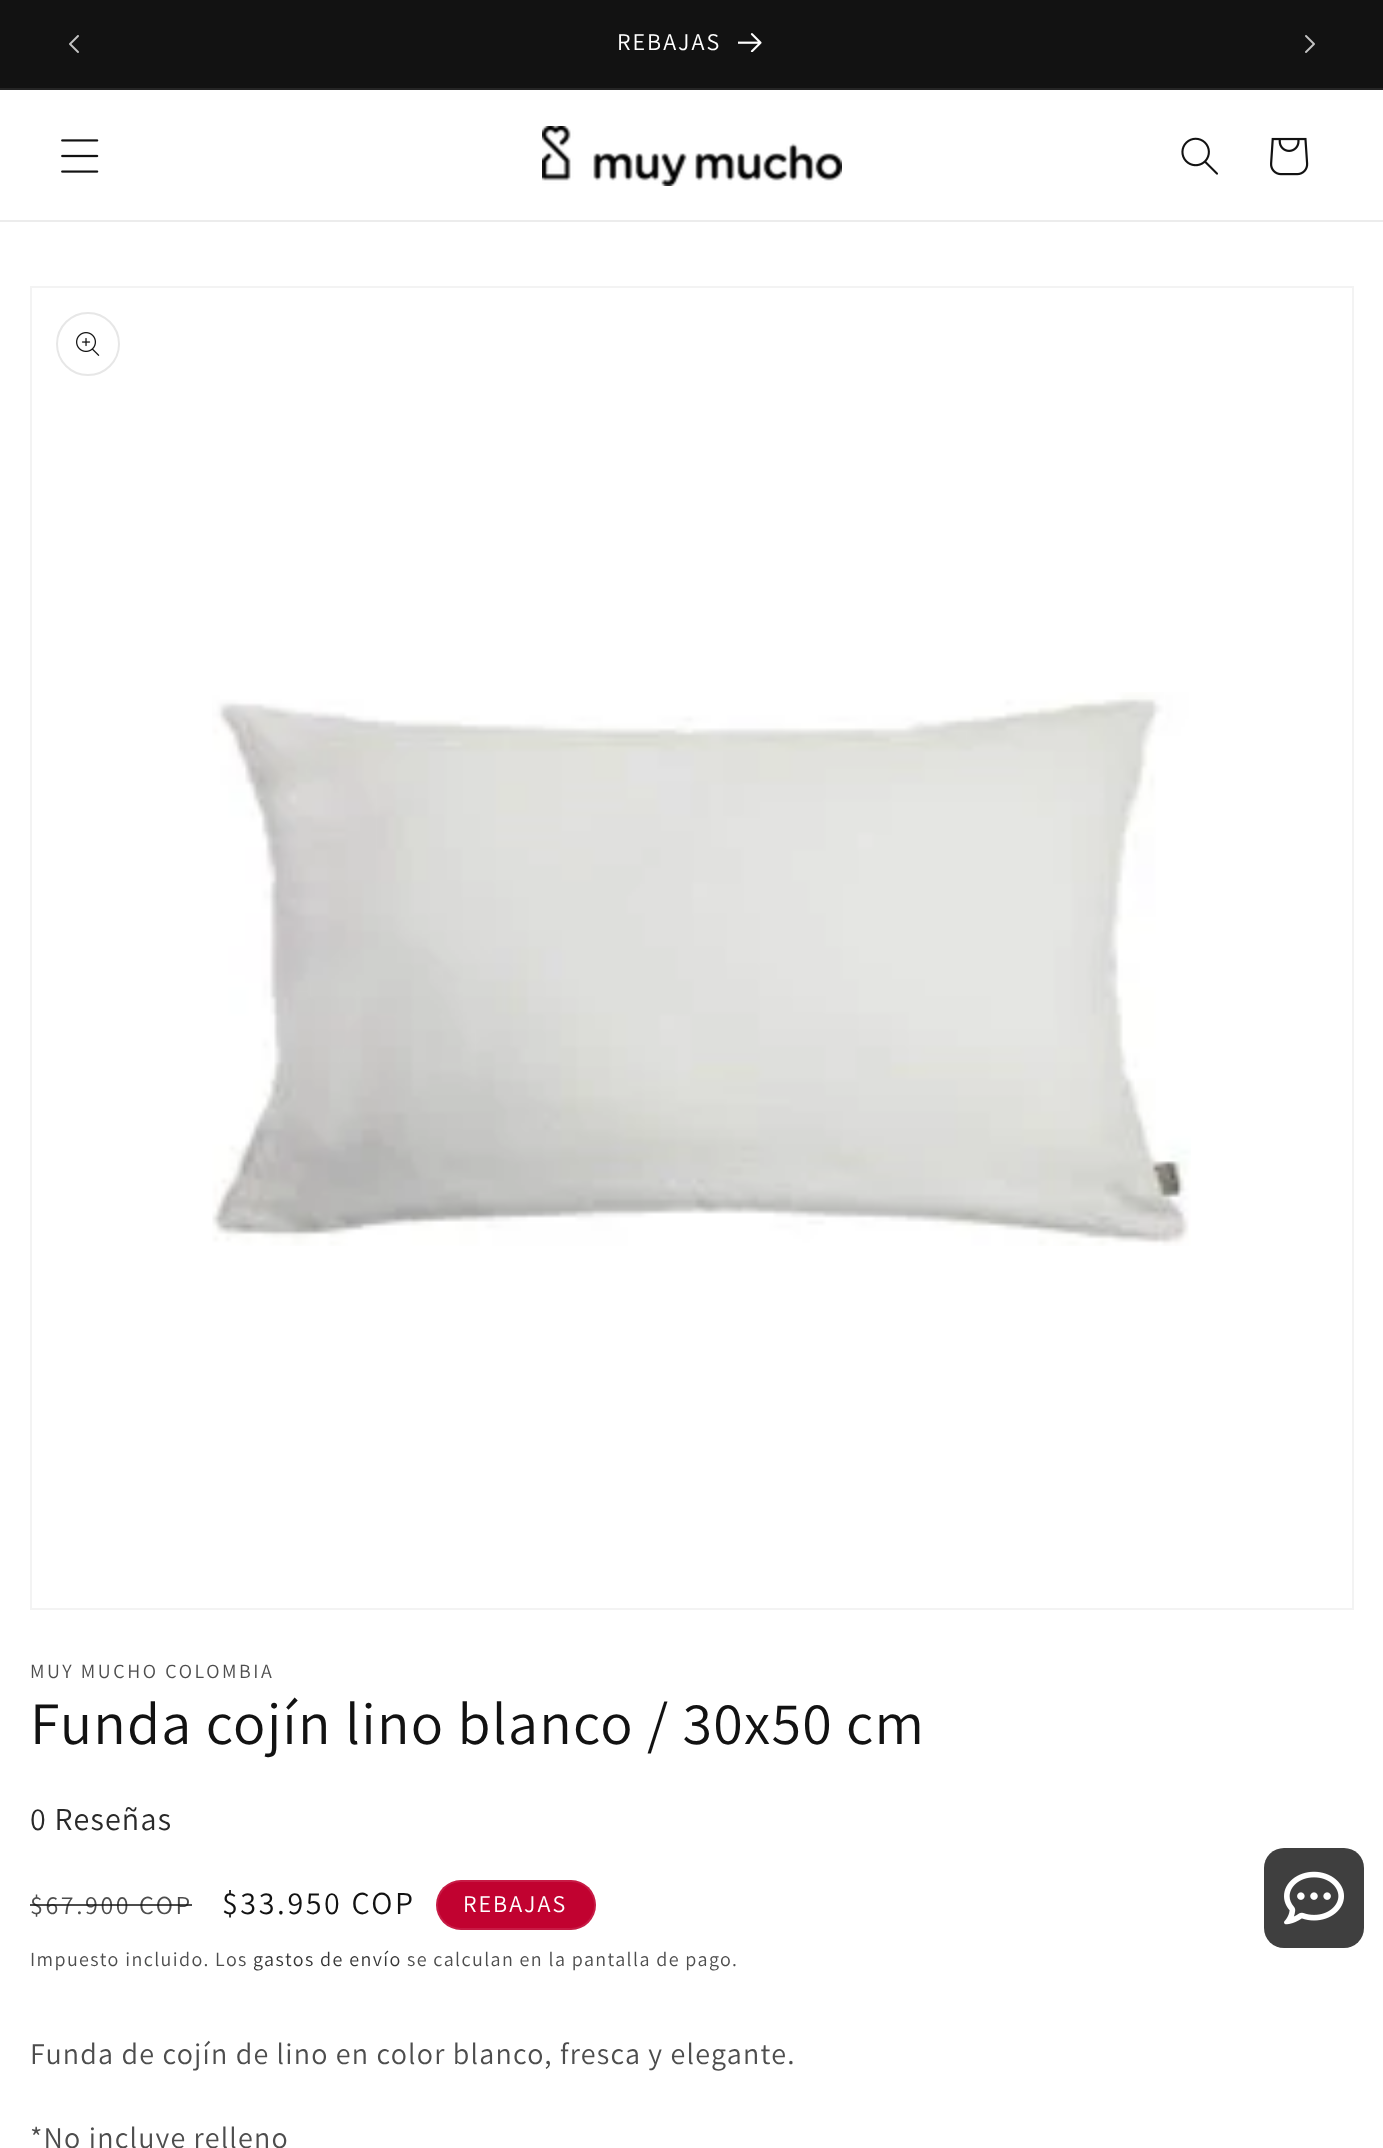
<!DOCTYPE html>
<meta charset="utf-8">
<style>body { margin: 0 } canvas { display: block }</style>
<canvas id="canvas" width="1383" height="2148"></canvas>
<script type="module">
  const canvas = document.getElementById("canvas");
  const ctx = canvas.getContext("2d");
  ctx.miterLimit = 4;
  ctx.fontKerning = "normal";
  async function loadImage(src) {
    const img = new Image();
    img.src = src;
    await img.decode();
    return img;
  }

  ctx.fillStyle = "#ffffff";
  ctx.fillRect(0, 0, 1383, 2148);
  ctx.fillStyle = "#121212";
  ctx.fillRect(0, 0, 1383, 88);
  ctx.fillStyle = "#252525";
  ctx.fillRect(0, 88, 1383, 2);
  ctx.drawImage(await loadImage("img1.png"), 69, 35, 10, 18);
  ctx.letterSpacing = "2px";
  ctx.font = "24px Assistant";
  ctx.fillStyle = "#ffffff";
  ctx.fillText("REBAJAS", 617, 50);
  ctx.drawImage(await loadImage("img2.png"), 738, 33, 24, 19);
  ctx.drawImage(await loadImage("img3.png"), 1305, 35, 10, 18);
  ctx.fillStyle = "#ececec";
  ctx.fillRect(0, 220, 1383, 2);
  ctx.drawImage(await loadImage("img4.png"), 61, 139, 38, 34);
  ctx.drawImage(await loadImage("img5.png"), 542, 126, 300, 60);
  ctx.drawImage(await loadImage("img6.png"), 1181, 137, 37, 38);
  ctx.drawImage(await loadImage("img7.png"), 1270, 137, 39, 39);
  ctx.strokeStyle = "#f3f3f3";
  ctx.lineWidth = 2;
  ctx.strokeRect(31, 287, 1322, 1322);
  ctx.beginPath();
  ctx.arc(88, 344, 31, 0, Math.PI * 2);
  ctx.strokeStyle = "#e7e7e7";
  ctx.stroke();
  ctx.drawImage(await loadImage("img8.png"), 76, 332, 24, 24);
  ctx.drawImage(await loadImage("img9.png"), 212, 692, 979, 554);
  ctx.letterSpacing = "2.6px";
  ctx.font = "20px Assistant";
  ctx.fillStyle = "#4d4d4d";
  ctx.fillText("MUY MUCHO COLOMBIA", 30, 1678);
  ctx.letterSpacing = "1.2px";
  ctx.font = "60px Assistant";
  ctx.fillStyle = "#121212";
  ctx.fillText("Funda cojín lino blanco / 30x50 cm", 30, 1744);
  ctx.font = "32px Assistant";
  ctx.fillStyle = "#292929";
  ctx.fillText("0 Reseñas", 30, 1830);
  ctx.letterSpacing = "2.6px";
  ctx.font = "26px Assistant";
  ctx.fillStyle = "#4d4d4d";
  ctx.fillText("$67.900 COP", 30, 1914);
  ctx.fillStyle = "rgba(18, 18, 18, 0.75)";
  ctx.fillRect(30, 1904, 162, 2);
  ctx.font = "32px Assistant";
  ctx.fillStyle = "#121212";
  ctx.fillText("$33.950 COP", 222, 1914);
  ctx.fillStyle = "#c10230";
  ctx.beginPath();
  ctx.roundRect(436, 1880, 160, 50, 25);
  ctx.fill();
  ctx.beginPath();
  ctx.roundRect(437, 1881, 158, 48, 24);
  ctx.strokeStyle = "rgba(255, 255, 255, 0.1)";
  ctx.stroke();
  ctx.letterSpacing = "2px";
  ctx.font = "24px Assistant";
  ctx.fillStyle = "#ffffff";
  ctx.fillText("REBAJAS", 463, 1912);
  ctx.letterSpacing = "1.4px";
  ctx.font = "20px Assistant";
  ctx.fillStyle = "#4d4d4d";
  ctx.fillText("Impuesto incluido. Los", 30, 1966);
  ctx.fillStyle = "#363636";
  ctx.fillText("gastos de envío", 253, 1966);
  ctx.fillStyle = "#4d4d4d";
  ctx.fillText("se calculan en la pantalla de pago.", 407, 1966);
  ctx.letterSpacing = "1.2px";
  ctx.font = "30px Assistant";
  ctx.fillText("Funda de cojín de lino en color blanco, fresca y elegante.", 30, 2064);
  ctx.fillText("*No incluye relleno", 30, 2148);
  ctx.fillStyle = "#3f3f3f";
  ctx.beginPath();
  ctx.roundRect(1264, 1848, 100, 100, 20);
  ctx.fill();
  ctx.drawImage(await loadImage("img10.png"), 1284, 1871, 60, 54);
</script>
